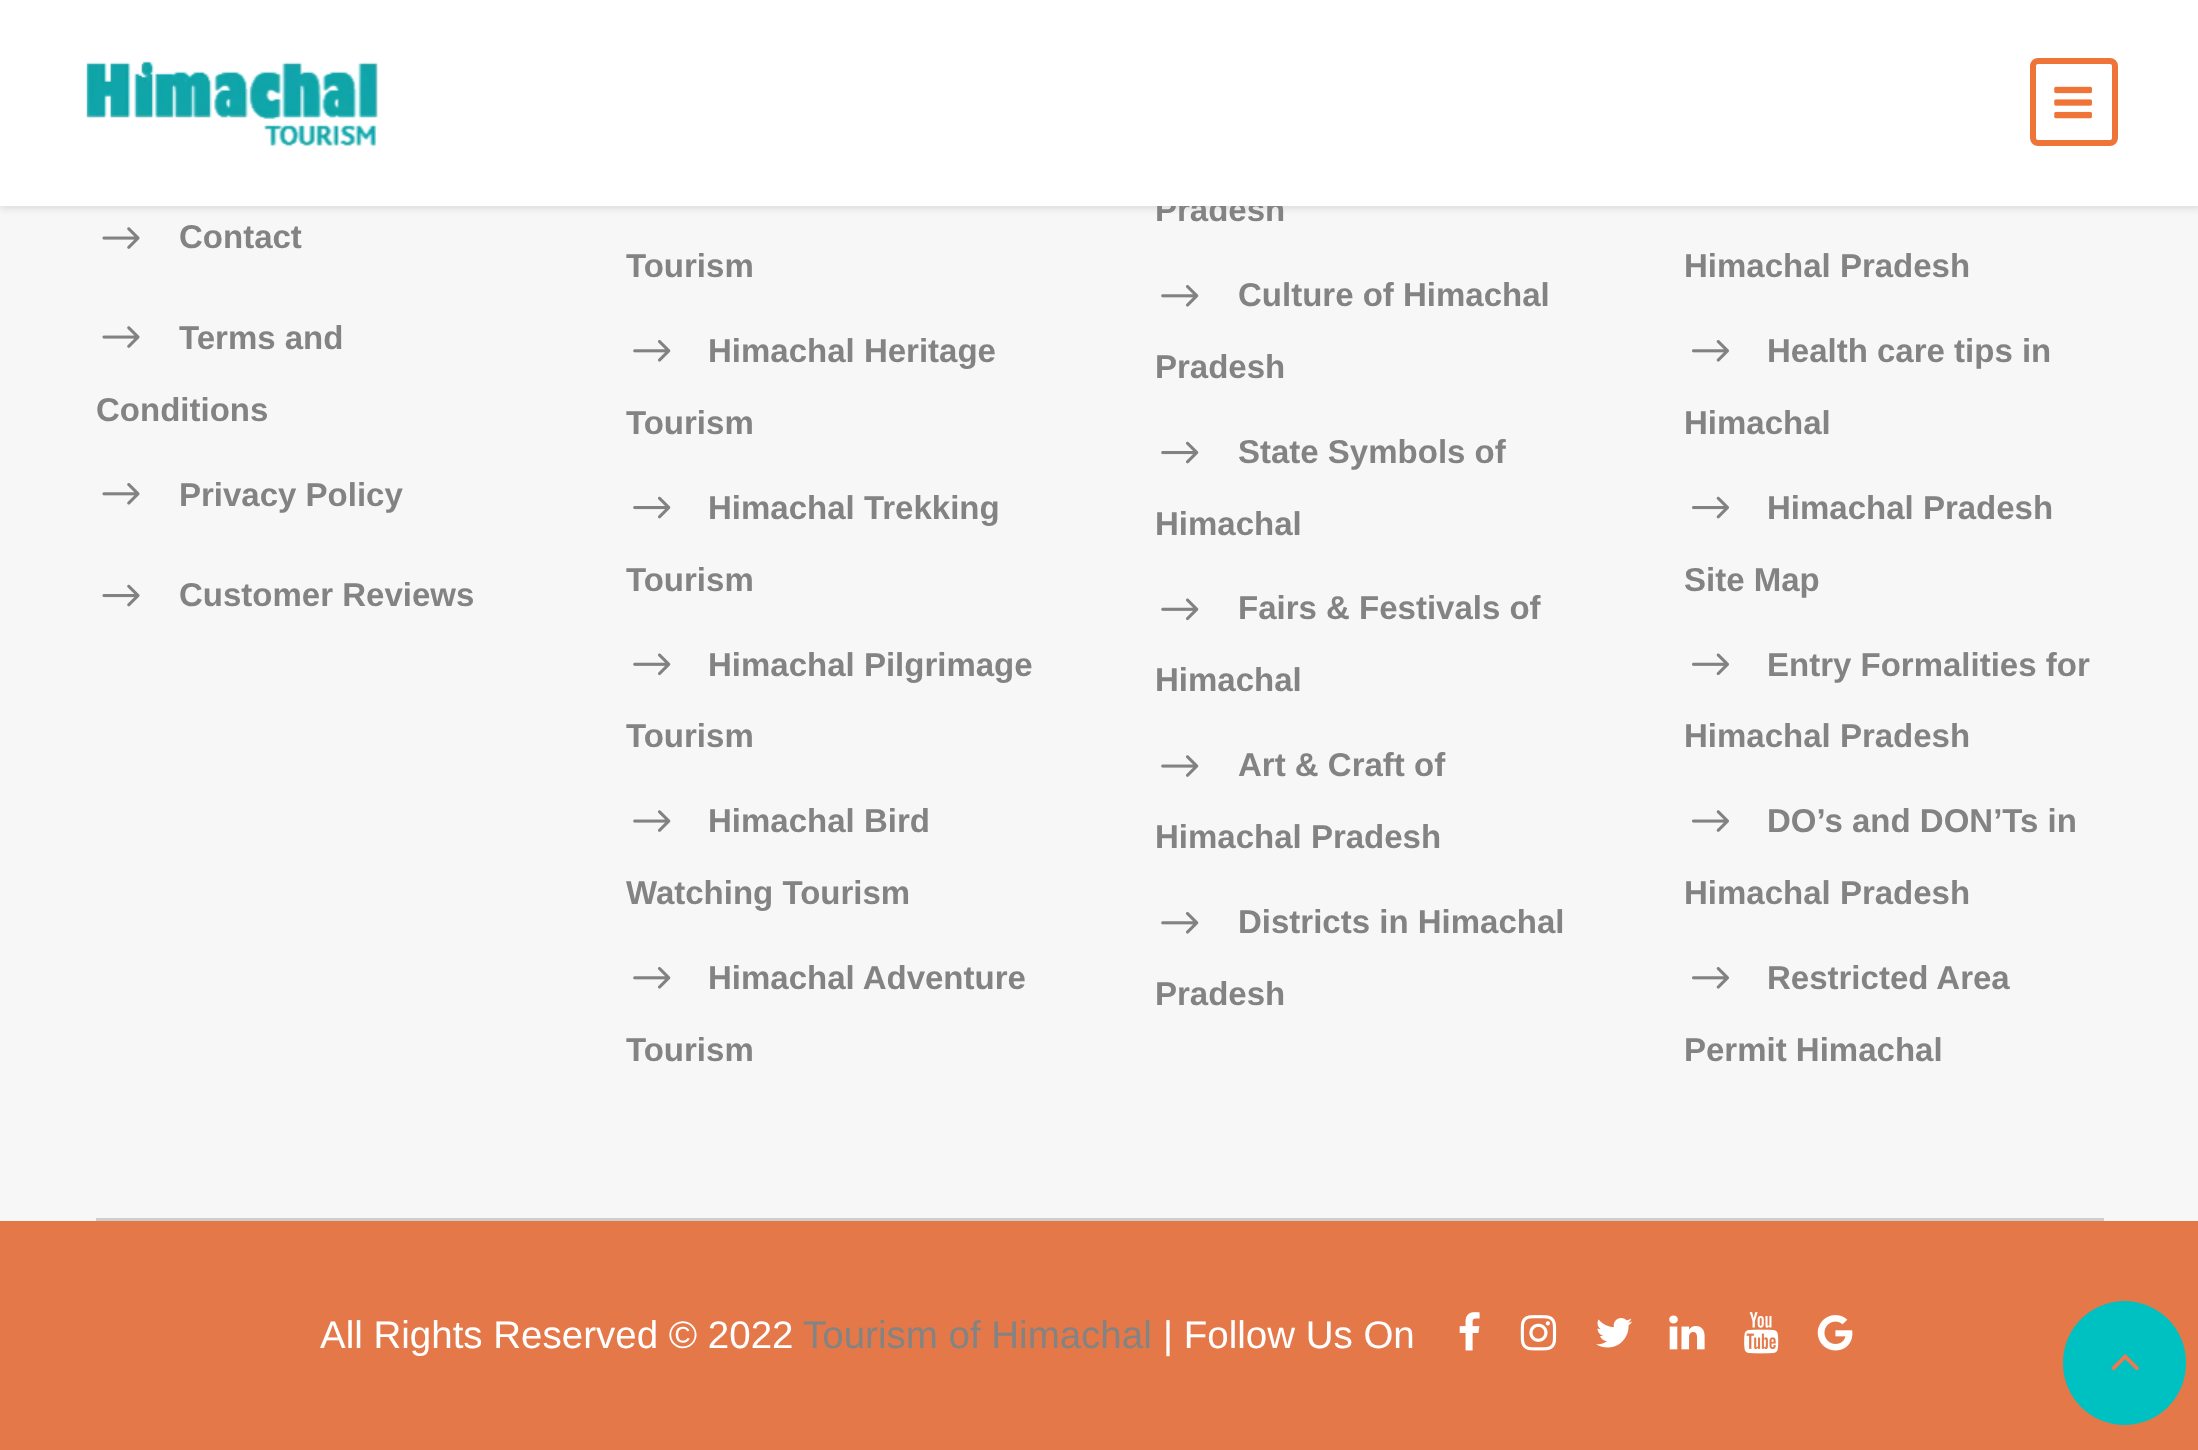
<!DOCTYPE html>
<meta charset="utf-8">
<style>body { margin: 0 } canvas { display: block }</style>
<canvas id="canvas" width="2198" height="1450"></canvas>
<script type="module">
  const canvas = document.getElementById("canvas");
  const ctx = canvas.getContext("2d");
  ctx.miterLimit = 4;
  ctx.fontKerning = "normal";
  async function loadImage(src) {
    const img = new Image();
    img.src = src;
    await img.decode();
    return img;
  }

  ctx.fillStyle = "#f7f7f7";
  ctx.fillRect(0, 0, 2198, 1450);
  ctx.fillStyle = "rgba(0, 0, 0, 0.1)";
  ctx.filter = "blur(3px)";
  ctx.beginPath();
  ctx.rect(0, 3, 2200, 206);
  ctx.fill();
  ctx.filter = "none";
  ctx.font = "bold 33px Liberation Sans";
  ctx.fillStyle = "#838383";
  ctx.fillText("Pradesh", 1155, 221);
  ctx.fillStyle = "#ffffff";
  ctx.fillRect(0, 0, 2198, 206);
  ctx.drawImage(await loadImage("img1.png"), 86, 61, 292, 85);
  ctx.beginPath();
  ctx.roundRect(2033, 61, 82, 82, 5);
  ctx.strokeStyle = "#ef7437";
  ctx.lineWidth = 6;
  ctx.stroke();
  ctx.drawImage(await loadImage("img2.png"), 2054, 86, 38, 33);
  ctx.drawImage(await loadImage("img3.png"), 102, 227, 38, 22);
  ctx.fillStyle = "#838383";
  ctx.fillText("Contact", 179, 248);
  ctx.drawImage(await loadImage("img3.png"), 102, 326, 38, 22);
  ctx.fillText("Terms and", 179, 349);
  ctx.fillText("Conditions", 96, 421);
  ctx.drawImage(await loadImage("img4.png"), 102, 483, 38, 22);
  ctx.fillText("Privacy Policy", 179, 506);
  ctx.drawImage(await loadImage("img5.png"), 102, 584, 38, 23);
  ctx.fillText("Customer Reviews", 179, 606);
  ctx.fillText("Tourism", 626, 277);
  ctx.drawImage(await loadImage("img6.png"), 633, 340, 38, 22);
  ctx.fillText("Himachal Heritage", 708, 362);
  ctx.fillText("Tourism", 626, 434);
  ctx.drawImage(await loadImage("img7.png"), 633, 496, 38, 23);
  ctx.fillText("Himachal Trekking", 708, 519);
  ctx.fillText("Tourism", 626, 591);
  ctx.drawImage(await loadImage("img8.png"), 633, 653, 38, 23);
  ctx.fillText("Himachal Pilgrimage", 708, 676);
  ctx.fillText("Tourism", 626, 747);
  ctx.drawImage(await loadImage("img9.png"), 633, 810, 38, 22);
  ctx.fillText("Himachal Bird", 708, 832);
  ctx.fillText("Watching Tourism", 626, 904);
  ctx.drawImage(await loadImage("img6.png"), 633, 967, 38, 22);
  ctx.fillText("Himachal Adventure", 708, 989);
  ctx.fillText("Tourism", 626, 1061);
  ctx.drawImage(await loadImage("img6.png"), 1161, 285, 38, 22);
  ctx.fillText("Culture of Himachal", 1238, 306);
  ctx.fillText("Pradesh", 1155, 378);
  ctx.drawImage(await loadImage("img7.png"), 1161, 441, 38, 23);
  ctx.fillText("State Symbols of", 1238, 463);
  ctx.fillText("Himachal", 1155, 535);
  ctx.drawImage(await loadImage("img8.png"), 1161, 598, 38, 23);
  ctx.fillText("Fairs & Festivals of", 1238, 619);
  ctx.fillText("Himachal", 1155, 691);
  ctx.drawImage(await loadImage("img9.png"), 1161, 755, 38, 22);
  ctx.fillText("Art & Craft of", 1238, 776);
  ctx.fillText("Himachal Pradesh", 1155, 848);
  ctx.drawImage(await loadImage("img6.png"), 1161, 912, 38, 22);
  ctx.fillText("Districts in Himachal", 1238, 933);
  ctx.fillText("Pradesh", 1155, 1005);
  ctx.fillText("Himachal Pradesh", 1684, 277);
  ctx.drawImage(await loadImage("img10.png"), 1692, 340, 37, 22);
  ctx.fillText("Health care tips in", 1767, 362);
  ctx.fillText("Himachal", 1684, 434);
  ctx.drawImage(await loadImage("img11.png"), 1692, 496, 37, 23);
  ctx.fillText("Himachal Pradesh", 1767, 519);
  ctx.fillText("Site Map", 1684, 591);
  ctx.drawImage(await loadImage("img12.png"), 1692, 653, 37, 23);
  ctx.fillText("Entry Formalities for", 1767, 676);
  ctx.fillText("Himachal Pradesh", 1684, 747);
  ctx.drawImage(await loadImage("img13.png"), 1692, 810, 37, 22);
  ctx.fillText("DO’s and DON’Ts in", 1767, 832);
  ctx.fillText("Himachal Pradesh", 1684, 904);
  ctx.drawImage(await loadImage("img10.png"), 1692, 967, 37, 22);
  ctx.fillText("Restricted Area", 1767, 989);
  ctx.fillText("Permit Himachal", 1684, 1061);
  ctx.fillStyle = "#cecece";
  ctx.fillRect(96, 1218, 2008, 3);
  ctx.fillStyle = "#e57849";
  ctx.fillRect(0, 1221, 2198, 229);
  ctx.font = "38.5px Liberation Sans";
  ctx.fillStyle = "#ffffff";
  ctx.fillText("All Rights Reserved © 2022", 320, 1348);
  ctx.fillStyle = "#838383";
  ctx.fillText("Tourism of Himachal", 803, 1348);
  ctx.fillStyle = "#ffffff";
  ctx.fillText("| Follow Us On", 1163, 1348);
  ctx.drawImage(await loadImage("img14.png"), 1459, 1312, 21, 39);
  ctx.drawImage(await loadImage("img15.png"), 1520, 1315, 37, 36);
  ctx.drawImage(await loadImage("img16.png"), 1596, 1318, 37, 30);
  ctx.drawImage(await loadImage("img17.png"), 1669, 1315, 36, 35);
  ctx.drawImage(await loadImage("img18.png"), 1744, 1312, 35, 42);
  ctx.drawImage(await loadImage("img19.png"), 1817, 1315, 36, 36);
  ctx.fillStyle = "#00c1c1";
  ctx.beginPath();
  ctx.roundRect(2063, 1301, 123, 124, 61.5);
  ctx.fill();
  ctx.drawImage(await loadImage("img20.png"), 2111, 1354, 28, 17);
</script>
